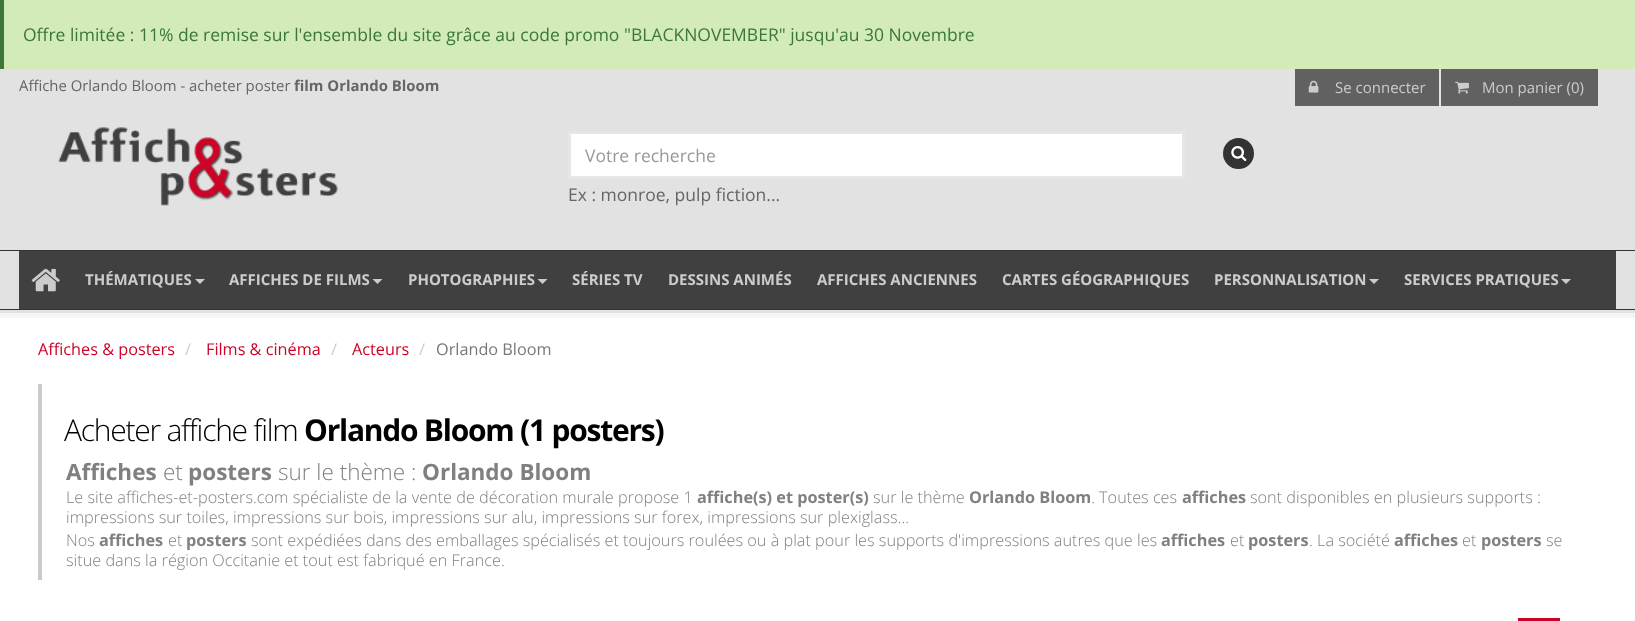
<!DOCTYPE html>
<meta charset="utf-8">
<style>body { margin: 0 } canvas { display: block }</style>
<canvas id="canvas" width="1635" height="621"></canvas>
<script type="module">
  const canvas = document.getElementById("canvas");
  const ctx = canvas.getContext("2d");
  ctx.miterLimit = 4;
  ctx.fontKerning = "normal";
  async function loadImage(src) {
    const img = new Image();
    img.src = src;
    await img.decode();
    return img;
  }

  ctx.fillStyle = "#d2ebb8";
  ctx.fillRect(0, 0, 1635, 621);
  ctx.fillStyle = "#3c763d";
  ctx.fillRect(0, 0, 4, 69);
  ctx.font = "17.5px Open Sans";
  ctx.fillText("Offre limitée : 11% de remise sur l'ensemble du site grâce au code promo \"BLACKNOVEMBER\" jusqu'au 30 Novembre", 23, 41);
  ctx.fillStyle = "#e2e2e2";
  ctx.fillRect(0, 69, 1635, 181);
  ctx.font = "14.9px Open Sans";
  ctx.fillStyle = "#666666";
  ctx.fillText("Affiche Orlando Bloom - acheter poster", 19, 91);
  ctx.font = "bold 14.9px Open Sans";
  ctx.fillText("film Orlando Bloom", 294, 91);
  ctx.drawImage(await loadImage("img1.png"), 58, 127, 280, 79);
  ctx.fillStyle = "#616161";
  ctx.fillRect(1295, 69, 144, 37);
  ctx.drawImage(await loadImage("img2.png"), 1308, 80, 11, 13);
  ctx.font = "15px Open Sans";
  ctx.fillStyle = "#cccccc";
  ctx.fillText("Se connecter", 1335, 93);
  ctx.fillStyle = "#616161";
  ctx.fillRect(1441, 69, 157, 37);
  ctx.drawImage(await loadImage("img3.png"), 1455, 81, 14, 13);
  ctx.fillStyle = "#cccccc";
  ctx.fillText("Mon panier (0)", 1482, 93);
  ctx.fillStyle = "#ffffff";
  ctx.beginPath();
  ctx.rect(569.5, 132.5, 614, 45);
  ctx.fill();
  ctx.strokeStyle = "#e6e6e6";
  ctx.lineWidth = 3;
  ctx.stroke();
  ctx.font = "17.5px Open Sans";
  ctx.fillStyle = "#999999";
  ctx.fillText("Votre recherche", 585, 162);
  ctx.fillStyle = "#666666";
  ctx.fillText("Ex : monroe, pulp fiction...", 568, 201);
  ctx.fillStyle = "#333333";
  ctx.beginPath();
  ctx.arc(1238.5, 153.5, 15.5, 0, Math.PI * 2);
  ctx.fill();
  ctx.drawImage(await loadImage("img4.png"), 1231, 146, 16, 16);
  ctx.fillStyle = "#ffffff";
  ctx.fillRect(0, 313, 1635, 308);
  ctx.fillStyle = "rgba(0, 0, 0, 0.04)";
  ctx.fillRect(0, 313, 1635, 5);
  ctx.fillStyle = "#e2e2e2";
  ctx.fillRect(0, 251, 1635, 62);
  ctx.fillStyle = "#333333";
  ctx.fillRect(0, 250, 1635, 1);
  ctx.fillRect(0, 309, 1635, 1);
  ctx.fillStyle = "#414041";
  ctx.fillRect(19, 251, 1597, 58);
  ctx.drawImage(await loadImage("img5.png"), 31, 268, 29, 24);
  ctx.font = "bold 15px Open Sans";
  ctx.fillStyle = "#cccccc";
  ctx.fillText("THÉMATIQUES", 85, 285);
  ctx.beginPath();
  ctx.moveTo(195, 279);
  ctx.lineTo(205, 279);
  ctx.lineTo(200, 284);
  ctx.closePath();
  ctx.fill();
  ctx.fillText("AFFICHES DE FILMS", 229, 285);
  ctx.beginPath();
  ctx.moveTo(372.5, 279);
  ctx.lineTo(382.5, 279);
  ctx.lineTo(377.5, 284);
  ctx.closePath();
  ctx.fill();
  ctx.fillText("PHOTOGRAPHIES", 408, 285);
  ctx.beginPath();
  ctx.moveTo(537.5, 279);
  ctx.lineTo(547.5, 279);
  ctx.lineTo(542.5, 284);
  ctx.closePath();
  ctx.fill();
  ctx.fillText("SÉRIES TV", 572, 285);
  ctx.fillText("DESSINS ANIMÉS", 668, 285);
  ctx.fillText("AFFICHES ANCIENNES", 817, 285);
  ctx.fillText("CARTES GÉOGRAPHIQUES", 1002, 285);
  ctx.fillText("PERSONNALISATION", 1214, 285);
  ctx.beginPath();
  ctx.moveTo(1369, 279);
  ctx.lineTo(1379, 279);
  ctx.lineTo(1374, 284);
  ctx.closePath();
  ctx.fill();
  ctx.fillText("SERVICES PRATIQUES", 1404, 285);
  ctx.beginPath();
  ctx.moveTo(1561, 279);
  ctx.lineTo(1571, 279);
  ctx.lineTo(1566, 284);
  ctx.closePath();
  ctx.fill();
  ctx.font = "16.25px Open Sans";
  ctx.fillStyle = "#cb0427";
  ctx.fillText("Affiches & posters", 38, 355);
  ctx.fillStyle = "#cccccc";
  ctx.fillText("/", 185, 355);
  ctx.fillStyle = "#cb0427";
  ctx.fillText("Films & cinéma", 206, 355);
  ctx.fillStyle = "#cccccc";
  ctx.fillText("/", 331, 355);
  ctx.fillStyle = "#cb0427";
  ctx.fillText("Acteurs", 352, 355);
  ctx.fillStyle = "#cccccc";
  ctx.fillText("/", 419, 355);
  ctx.fillStyle = "#777777";
  ctx.fillText("Orlando Bloom", 436, 355);
  ctx.fillStyle = "#cacaca";
  ctx.fillRect(38, 384, 4, 196);
  ctx.letterSpacing = "-1.25px";
  ctx.font = "300 30px Open Sans";
  ctx.fillStyle = "#000000";
  ctx.fillText("Acheter affiche film", 64, 441);
  ctx.font = "bold 30px Open Sans";
  ctx.fillText("Orlando Bloom (1 posters)", 304, 441);
  ctx.letterSpacing = "0px";
  ctx.font = "bold 22.5px Open Sans";
  ctx.fillStyle = "#808080";
  ctx.fillText("Affiches", 66, 480);
  ctx.font = "300 22.5px Open Sans";
  ctx.fillText("et", 163, 480);
  ctx.font = "bold 22.5px Open Sans";
  ctx.fillText("posters", 188, 480);
  ctx.font = "300 22.5px Open Sans";
  ctx.fillText("sur le thème :", 278, 480);
  ctx.font = "bold 22.5px Open Sans";
  ctx.fillText("Orlando Bloom", 422, 480);
  ctx.font = "300 16.25px Open Sans";
  ctx.fillText("Le site affiches-et-posters.com spécialiste de la vente de décoration murale propose 1", 66, 503);
  ctx.font = "bold 16.25px Open Sans";
  ctx.fillText("affiche(s) et poster(s)", 697, 503);
  ctx.font = "300 16.25px Open Sans";
  ctx.fillText("sur le thème", 873, 503);
  ctx.font = "bold 16.25px Open Sans";
  ctx.fillText("Orlando Bloom", 969, 503);
  ctx.font = "300 16.25px Open Sans";
  ctx.fillText(". Toutes ces", 1091, 503);
  ctx.font = "bold 16.25px Open Sans";
  ctx.fillText("affiches", 1182, 503);
  ctx.font = "300 16.25px Open Sans";
  ctx.fillText("sont disponibles en plusieurs supports :", 1250, 503);
  ctx.fillText("impressions sur toiles, impressions sur bois, impressions sur alu, impressions sur forex, impressions sur plexiglass...", 66, 523);
  ctx.fillText("Nos", 66, 546);
  ctx.font = "bold 16.25px Open Sans";
  ctx.fillText("affiches", 99, 546);
  ctx.font = "300 16.25px Open Sans";
  ctx.fillText("et", 168, 546);
  ctx.font = "bold 16.25px Open Sans";
  ctx.fillText("posters", 186, 546);
  ctx.font = "300 16.25px Open Sans";
  ctx.fillText("sont expédiées dans des emballages spécialisés et toujours roulées ou à plat pour les supports d'impressions autres que les", 251, 546);
  ctx.font = "bold 16.25px Open Sans";
  ctx.fillText("affiches", 1161, 546);
  ctx.font = "300 16.25px Open Sans";
  ctx.fillText("et", 1230, 546);
  ctx.font = "bold 16.25px Open Sans";
  ctx.fillText("posters", 1248, 546);
  ctx.font = "300 16.25px Open Sans";
  ctx.fillText(". La société", 1309, 546);
  ctx.font = "bold 16.25px Open Sans";
  ctx.fillText("affiches", 1394, 546);
  ctx.font = "300 16.25px Open Sans";
  ctx.fillText("et", 1462, 546);
  ctx.font = "bold 16.25px Open Sans";
  ctx.fillText("posters", 1481, 546);
  ctx.font = "300 16.25px Open Sans";
  ctx.fillText("se", 1546, 546);
  ctx.fillText("situe dans la région Occitanie et tout est fabriqué en France.", 66, 566);
  ctx.fillStyle = "#cb0427";
  ctx.fillRect(1518, 618, 42, 3);
</script>
